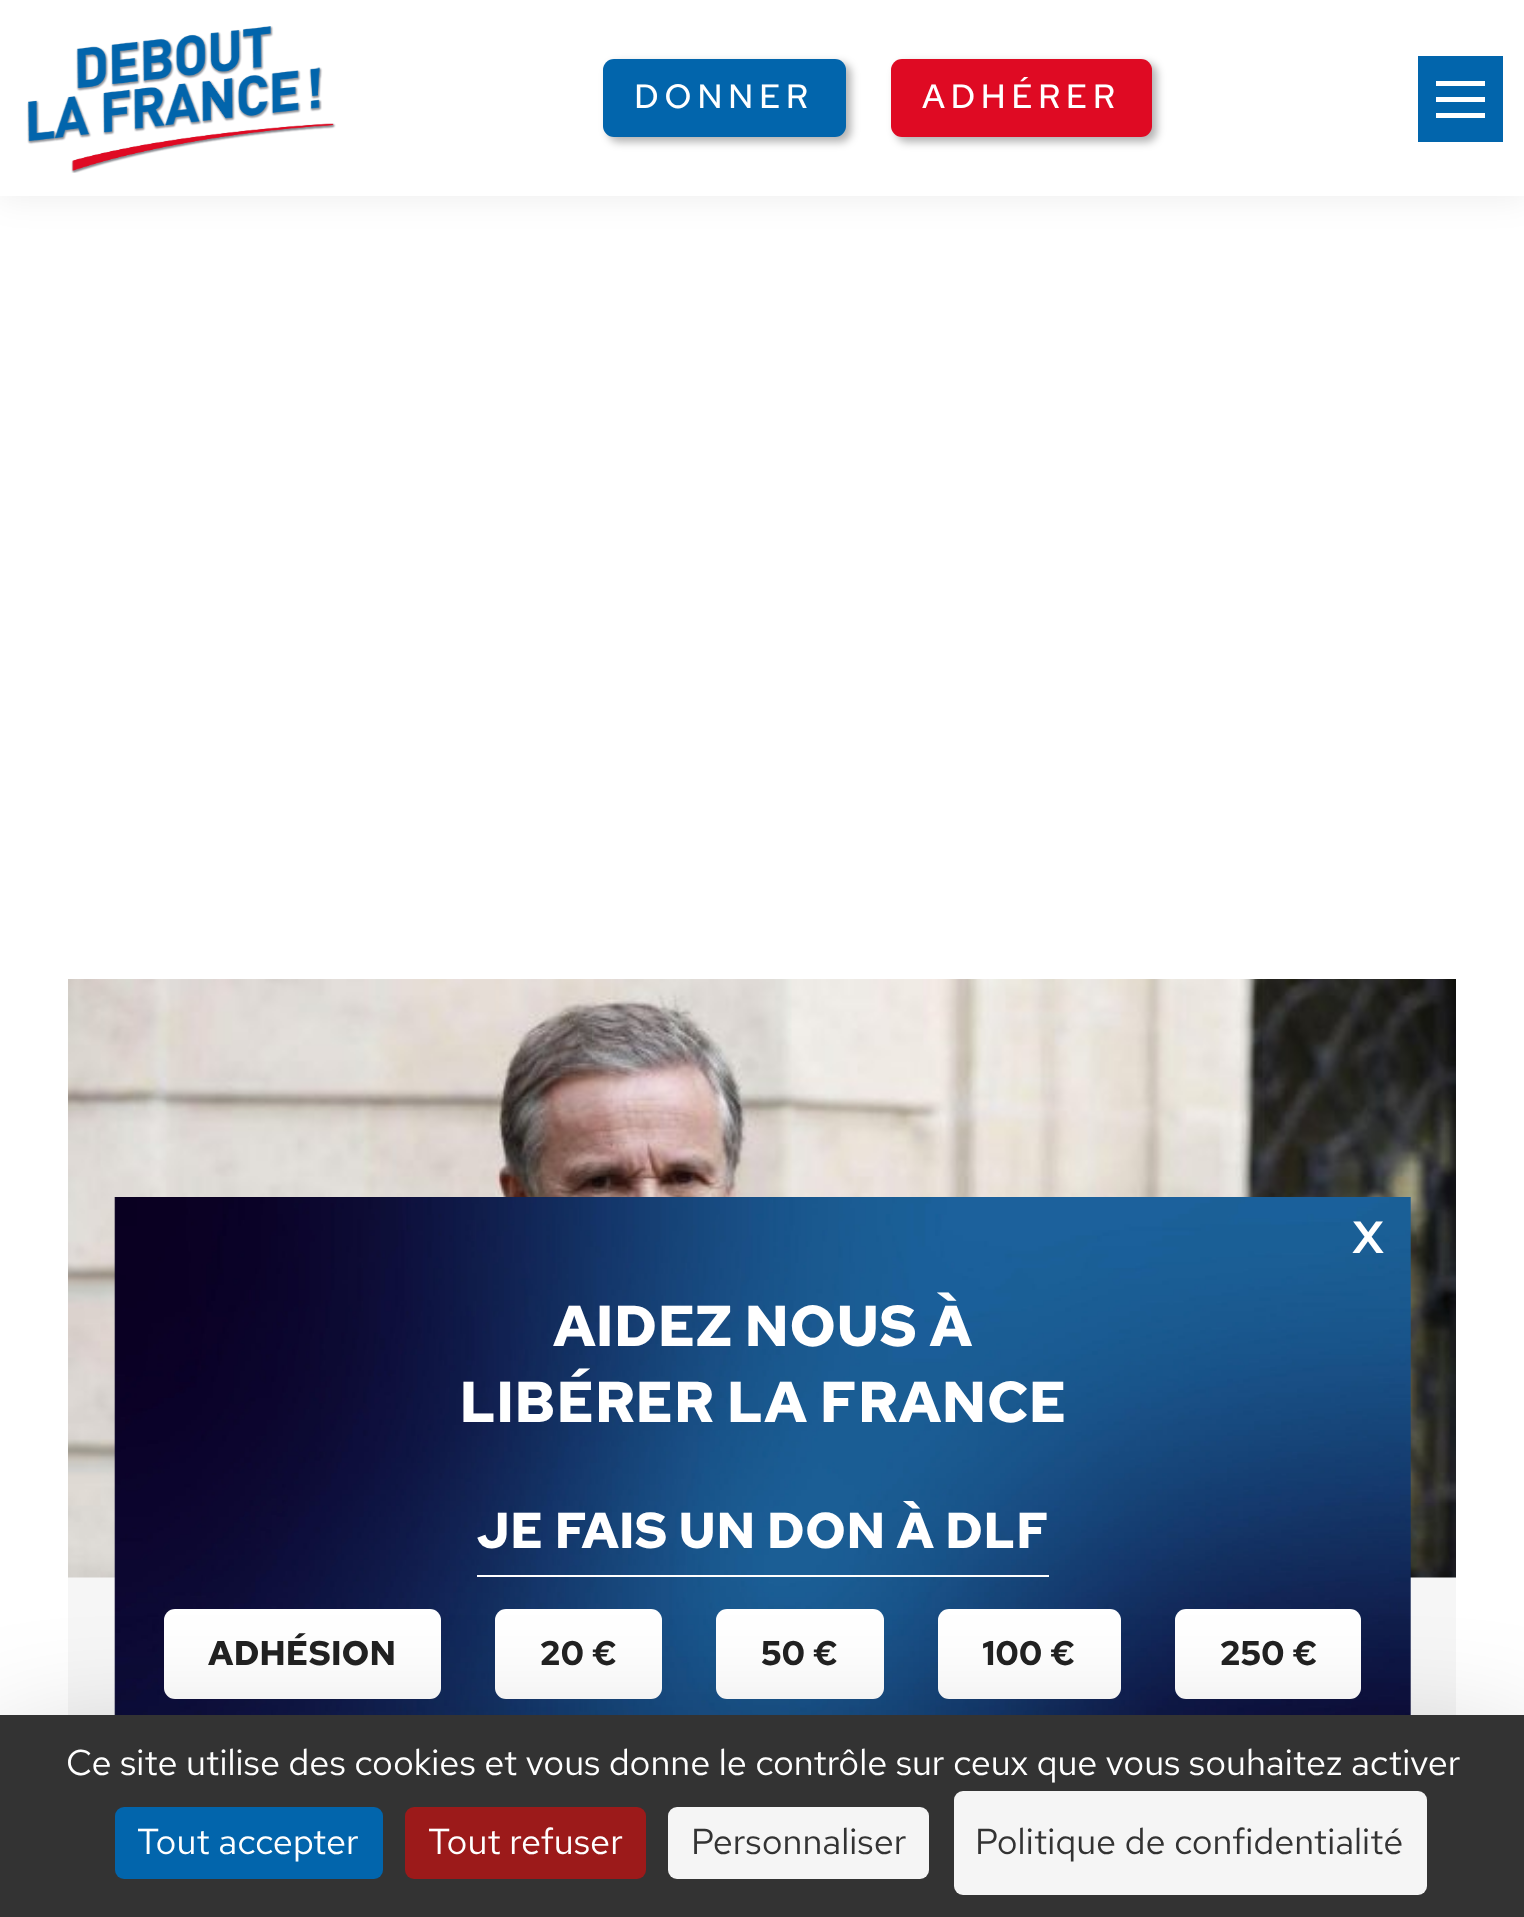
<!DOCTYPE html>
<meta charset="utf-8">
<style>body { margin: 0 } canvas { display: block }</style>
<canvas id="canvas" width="1524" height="1917"></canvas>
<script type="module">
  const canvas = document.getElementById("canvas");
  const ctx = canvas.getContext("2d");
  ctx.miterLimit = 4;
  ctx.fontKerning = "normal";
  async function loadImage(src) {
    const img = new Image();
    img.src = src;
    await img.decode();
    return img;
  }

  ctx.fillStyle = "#ffffff";
  ctx.fillRect(0, 0, 1524, 1917);
  ctx.fillStyle = "rgba(0, 0, 0, 0.07)";
  ctx.filter = "blur(17px)";
  ctx.beginPath();
  ctx.rect(-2, -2, 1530, 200);
  ctx.fill();
  ctx.filter = "none";
  ctx.fillStyle = "#ffffff";
  ctx.fillRect(0, 0, 1524, 196);
  ctx.drawImage(await loadImage("img1.png"), 27, 26, 309, 147);
  ctx.fillStyle = "rgba(0, 0, 0, 0.3)";
  ctx.filter = "blur(4.5px)";
  ctx.beginPath();
  ctx.roundRect(608, 63, 243, 79, 11);
  ctx.fill();
  ctx.filter = "none";
  ctx.fillStyle = "#0265ac";
  ctx.beginPath();
  ctx.roundRect(603, 59, 243, 78, 11);
  ctx.fill();
  ctx.letterSpacing = "5.5px";
  ctx.font = "500 33.75px Red Hat Text";
  ctx.fillStyle = "#ffffff";
  ctx.fillText("DONNER", 634, 108);
  ctx.fillStyle = "rgba(0, 0, 0, 0.3)";
  ctx.filter = "blur(4.5px)";
  ctx.beginPath();
  ctx.roundRect(896, 63, 261, 79, 11);
  ctx.fill();
  ctx.filter = "none";
  ctx.fillStyle = "#df0a23";
  ctx.beginPath();
  ctx.roundRect(891, 59, 261, 78, 11);
  ctx.fill();
  ctx.fillStyle = "#ffffff";
  ctx.fillText("ADHÉRER", 922, 108);
  ctx.fillStyle = "#0265ac";
  ctx.fillRect(1418, 56, 85, 86);
  ctx.fillStyle = "#ffffff";
  ctx.fillRect(1436, 81, 49, 5);
  ctx.fillRect(1436, 97, 49, 5);
  ctx.fillRect(1436, 113, 49, 5);
  ctx.fillStyle = "#f6f6f6";
  ctx.fillRect(68, 1577, 1388, 138);
  ctx.drawImage(await loadImage("img2.png"), 68, 979, 1388, 599);
  ctx.drawImage(await loadImage("img3.png"), 114, 1197, 1297, 518);
  ctx.letterSpacing = "0px";
  ctx.font = "600 45px Red Hat Text";
  ctx.fillStyle = "#ffffff";
  ctx.fillText("X", 1352, 1253);
  ctx.font = "bold 57.6px Red Hat Text";
  ctx.fillText("AIDEZ NOUS À", 553, 1346);
  ctx.fillText("LIBÉRER LA FRANCE", 459, 1422);
  ctx.font = "bold 50.4px Red Hat Text";
  ctx.fillText("JE FAIS UN DON À DLF", 476, 1548);
  ctx.fillRect(477, 1575, 572, 2);
  ctx.beginPath();
  ctx.roundRect(164, 1609, 277, 90, 11);
  ctx.fill();
  ctx.font = "bold 34.25px Red Hat Text";
  ctx.fillStyle = "#222222";
  ctx.fillText("ADHÉSION", 208, 1665);
  ctx.fillStyle = "#ffffff";
  ctx.beginPath();
  ctx.roundRect(495, 1609, 167, 90, 11);
  ctx.fill();
  ctx.fillStyle = "#222222";
  ctx.fillText("20 €", 540, 1665);
  ctx.fillStyle = "#ffffff";
  ctx.beginPath();
  ctx.roundRect(716, 1609, 168, 90, 11);
  ctx.fill();
  ctx.fillStyle = "#222222";
  ctx.fillText("50 €", 761, 1665);
  ctx.fillStyle = "#ffffff";
  ctx.beginPath();
  ctx.roundRect(938, 1609, 183, 90, 11);
  ctx.fill();
  ctx.fillStyle = "#222222";
  ctx.fillText("100 €", 982, 1665);
  ctx.fillStyle = "#ffffff";
  ctx.beginPath();
  ctx.roundRect(1175, 1609, 186, 90, 11);
  ctx.fill();
  ctx.fillStyle = "#222222";
  ctx.fillText("250 €", 1220, 1665);
  ctx.fillStyle = "rgba(0, 0, 0, 0.25)";
  ctx.filter = "blur(67.5px)";
  ctx.beginPath();
  ctx.rect(0, 1760, 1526, 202);
  ctx.fill();
  ctx.filter = "none";
  ctx.fillStyle = "#333333";
  ctx.fillRect(0, 1715, 1524, 202);
  ctx.font = "36px Red Hat Text";
  ctx.fillStyle = "#ffffff";
  ctx.fillText("Ce site utilise des cookies et vous donne le contrôle sur ceux que vous souhaitez activer", 66, 1775);
  ctx.fillStyle = "#0265ac";
  ctx.beginPath();
  ctx.roundRect(115, 1807, 268, 72, 9);
  ctx.fill();
  ctx.fillStyle = "#ffffff";
  ctx.fillText("Tout accepter", 137, 1854);
  ctx.fillStyle = "#9c1a1a";
  ctx.beginPath();
  ctx.roundRect(405, 1807, 241, 72, 9);
  ctx.fill();
  ctx.fillStyle = "#ffffff";
  ctx.fillText("Tout refuser", 428, 1854);
  ctx.fillStyle = "#f5f5f5";
  ctx.beginPath();
  ctx.roundRect(668, 1807, 261, 72, 9);
  ctx.fill();
  ctx.fillStyle = "#333333";
  ctx.fillText("Personnaliser", 691, 1854);
  ctx.fillStyle = "#f5f5f5";
  ctx.beginPath();
  ctx.roundRect(954, 1791, 473, 104, 9);
  ctx.fill();
  ctx.fillStyle = "#333333";
  ctx.fillText("Politique de confidentialité", 975, 1854);
</script>
